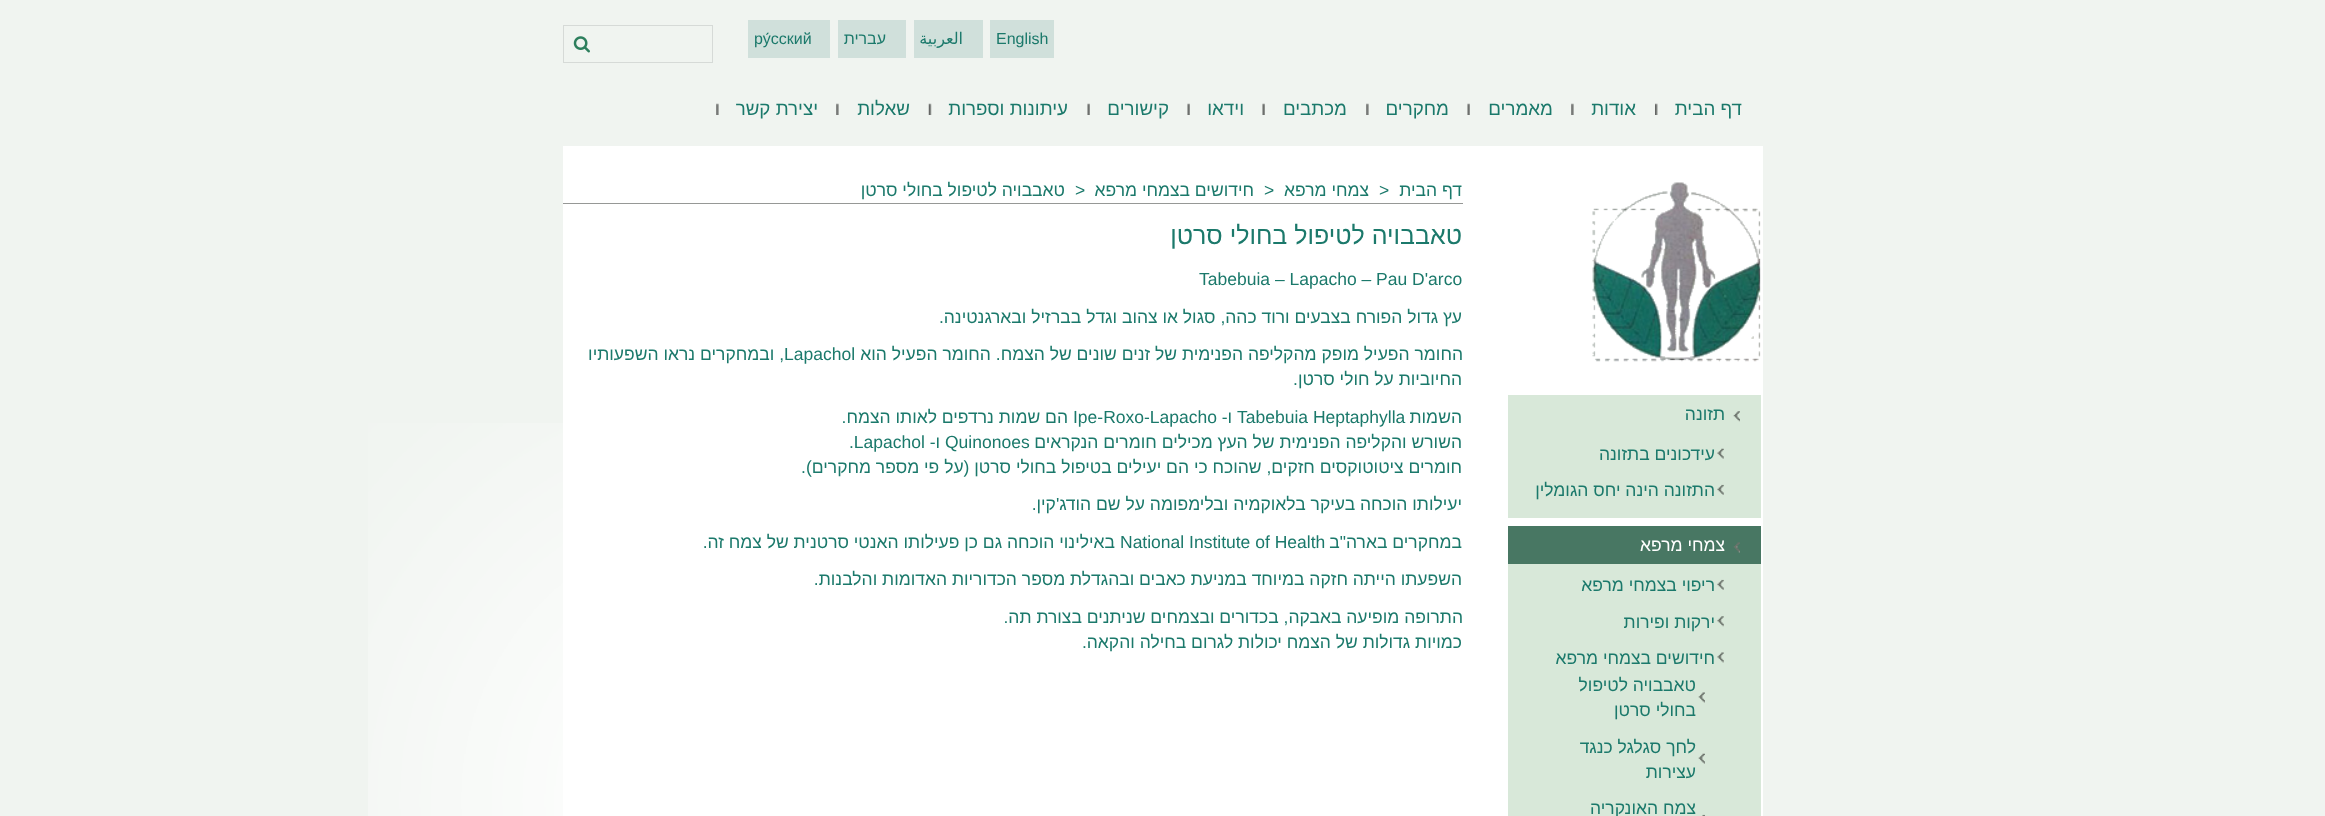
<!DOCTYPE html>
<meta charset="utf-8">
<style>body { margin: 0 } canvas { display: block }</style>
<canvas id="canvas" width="2325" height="816"></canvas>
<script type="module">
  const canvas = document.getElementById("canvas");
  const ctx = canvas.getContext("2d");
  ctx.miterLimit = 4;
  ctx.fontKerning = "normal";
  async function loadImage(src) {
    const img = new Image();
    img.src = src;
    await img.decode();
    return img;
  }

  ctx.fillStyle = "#f0f4f0";
  ctx.fillRect(0, 0, 2325, 816);
  ctx.drawImage(await loadImage("img1.png"), 368, 423, 195, 393);
  ctx.fillStyle = "#d0e0db";
  ctx.fillRect(990, 20, 64, 38);
  ctx.font = "16px Liberation Sans";
  ctx.fillStyle = "#1b796b";
  ctx.fillText("English", 996, 44);
  ctx.fillStyle = "#d0e0db";
  ctx.fillRect(914, 20, 69, 38);
  ctx.direction = "rtl";
  ctx.font = "16px DejaVu Sans";
  ctx.fillStyle = "#1b796b";
  ctx.fillText("العربية", 963, 44);
  ctx.fillStyle = "#d0e0db";
  ctx.fillRect(838, 20, 68, 38);
  ctx.font = "16px Liberation Sans";
  ctx.fillStyle = "#1b796b";
  ctx.fillText("עברית", 886, 44);
  ctx.fillStyle = "#d0e0db";
  ctx.fillRect(748, 20, 82, 38);
  ctx.direction = "ltr";
  ctx.fillStyle = "#1b796b";
  ctx.fillText("ру́сский", 754, 44);
  ctx.strokeStyle = "#d6dad7";
  ctx.strokeRect(563.5, 25.5, 149, 37);
  ctx.drawImage(await loadImage("img2.png"), 573, 36, 17, 17);
  ctx.drawImage(await loadImage("img3.png"), 1655, 103, 3, 12);
  ctx.direction = "rtl";
  ctx.font = "18.75px Liberation Sans";
  ctx.fillText("דף הבית", 1742, 115);
  ctx.drawImage(await loadImage("img4.png"), 1571, 103, 3, 12);
  ctx.fillText("אודות", 1636, 115);
  ctx.drawImage(await loadImage("img5.png"), 1467, 103, 3, 12);
  ctx.fillText("מאמרים", 1553, 115);
  ctx.drawImage(await loadImage("img4.png"), 1366, 103, 3, 12);
  ctx.fillText("מחקרים", 1449, 115);
  ctx.drawImage(await loadImage("img5.png"), 1262, 103, 3, 12);
  ctx.fillText("מכתבים", 1347, 115);
  ctx.drawImage(await loadImage("img5.png"), 1187, 103, 3, 12);
  ctx.fillText("וידאו", 1244, 115);
  ctx.drawImage(await loadImage("img5.png"), 1087, 103, 3, 12);
  ctx.fillText("קישורים", 1169, 115);
  ctx.drawImage(await loadImage("img6.png"), 928, 103, 4, 12);
  ctx.fillText("עיתונות וספרות", 1068, 115);
  ctx.drawImage(await loadImage("img4.png"), 836, 103, 3, 12);
  ctx.fillText("שאלות", 910, 115);
  ctx.drawImage(await loadImage("img4.png"), 716, 103, 3, 12);
  ctx.fillText("יצירת קשר", 818, 115);
  ctx.fillStyle = "#ffffff";
  ctx.fillRect(563, 146, 1200, 670);
  ctx.drawImage(await loadImage("img7.png"), 1592, 182, 169, 180);
  ctx.fillStyle = "#d8e8d9";
  ctx.fillRect(1508, 395, 253, 123);
  ctx.drawImage(await loadImage("img8.png"), 1733, 411, 7, 11);
  ctx.font = "17.5px Liberation Sans";
  ctx.fillStyle = "#1b796b";
  ctx.fillText("תזונה", 1725, 420);
  ctx.drawImage(await loadImage("img9.png"), 1717, 448, 7, 11);
  ctx.fillText("עידכונים בתזונה", 1715, 460);
  ctx.drawImage(await loadImage("img10.png"), 1717, 484, 7, 11);
  ctx.fillText("התזונה הינה יחס הגומלין", 1715, 496);
  ctx.fillStyle = "#d8e8d9";
  ctx.fillRect(1508, 564, 253, 252);
  ctx.fillStyle = "#487763";
  ctx.fillRect(1508, 526, 253, 38);
  ctx.drawImage(await loadImage("img11.png"), 1733, 542, 7, 11);
  ctx.fillStyle = "#ffffff";
  ctx.fillText("צמחי מרפא", 1725, 551);
  ctx.drawImage(await loadImage("img10.png"), 1717, 579, 7, 11);
  ctx.fillStyle = "#1b796b";
  ctx.fillText("ריפוי בצמחי מרפא", 1715, 591);
  ctx.drawImage(await loadImage("img12.png"), 1717, 616, 7, 11);
  ctx.fillText("ירקות ופירות", 1715, 628);
  ctx.drawImage(await loadImage("img13.png"), 1717, 652, 7, 11);
  ctx.fillText("חידושים בצמחי מרפא", 1715, 664);
  ctx.drawImage(await loadImage("img14.png"), 1698, 692, 7, 11);
  ctx.fillText("טאבבויה לטיפול", 1696, 691);
  ctx.fillText("בחולי סרטן", 1696, 716);
  ctx.drawImage(await loadImage("img15.png"), 1698, 753, 7, 11);
  ctx.fillText("לחך סגלגל כנגד", 1696, 753);
  ctx.fillText("עצירות", 1696, 778);
  ctx.drawImage(await loadImage("img16.png"), 1702, 814, 3, 2);
  ctx.fillText("צמח האונקריה", 1696, 814);
  ctx.fillStyle = "#969896";
  ctx.fillRect(563, 203, 900, 1);
  ctx.fillStyle = "#1b796b";
  ctx.fillText("דף הבית", 1462, 196);
  ctx.direction = "ltr";
  ctx.fillText(">", 1379, 196);
  ctx.direction = "rtl";
  ctx.fillText("צמחי מרפא", 1369, 196);
  ctx.direction = "ltr";
  ctx.fillText(">", 1264, 196);
  ctx.direction = "rtl";
  ctx.fillText("חידושים בצמחי מרפא", 1254, 196);
  ctx.direction = "ltr";
  ctx.fillText(">", 1075, 196);
  ctx.direction = "rtl";
  ctx.fillText("טאבבויה לטיפול בחולי סרטן", 1065, 196);
  ctx.font = "25px Liberation Sans";
  ctx.fillText("טאבבויה לטיפול בחולי סרטן", 1462, 244);
  ctx.direction = "ltr";
  ctx.font = "17.5px Liberation Sans";
  ctx.fillText("Tabebuia – Lapacho – Pau D'arco", 1199, 285);
  ctx.direction = "rtl";
  ctx.fillText("עץ גדול הפורח בצבעים ורוד כהה, סגול או צהוב וגדל בברזיל ובארגנטינה.", 1462, 323);
  ctx.fillText("החומר הפעיל מופק מהקליפה הפנימית של זנים שונים של הצמח. החומר הפעיל הוא", 1463, 360);
  ctx.direction = "ltr";
  ctx.fillText("Lapachol", 784, 360);
  ctx.direction = "rtl";
  ctx.fillText(", ובמחקרים נראו השפעותיו", 784, 360);
  ctx.fillText("החיוביות על חולי סרטן.", 1462, 385);
  ctx.fillText("השמות", 1462, 423);
  ctx.direction = "ltr";
  ctx.fillText("Tabebuia Heptaphylla", 1237, 423);
  ctx.direction = "rtl";
  ctx.fillText("ו-", 1232, 423);
  ctx.direction = "ltr";
  ctx.fillText("Ipe-Roxo-Lapacho", 1073, 423);
  ctx.direction = "rtl";
  ctx.fillText("הם שמות נרדפים לאותו הצמח.", 1068, 423);
  ctx.fillText("השורש והקליפה הפנימית של העץ מכילים חומרים הנקראים", 1462, 448);
  ctx.direction = "ltr";
  ctx.fillText("Quinonoes", 945, 448);
  ctx.direction = "rtl";
  ctx.fillText("ו-", 940, 448);
  ctx.direction = "ltr";
  ctx.fillText(".Lapachol", 849, 448);
  ctx.direction = "rtl";
  ctx.fillText("חומרים ציטוטוקסים חזקים, שהוכח כי הם יעילים בטיפול בחולי סרטן (על פי מספר מחקרים).", 1462, 473);
  ctx.fillText("יעילותו הוכחה בעיקר בלאוקמיה ובלימפומה על שם הודג'קין.", 1462, 510);
  ctx.fillText("במחקרים בארה\"ב", 1462, 548);
  ctx.direction = "ltr";
  ctx.fillText("National Institute of Health", 1120, 548);
  ctx.direction = "rtl";
  ctx.fillText("באילינוי הוכחה גם כן פעילותו האנטי סרטנית של צמח זה.", 1115, 548);
  ctx.fillText("השפעתו הייתה חזקה במיוחד במניעת כאבים ובהגדלת מספר הכדוריות האדומות והלבנות.", 1462, 585);
  ctx.fillText("התרופה מופיעה באבקה, בכדורים ובצמחים שניתנים בצורת תה.", 1463, 623);
  ctx.fillText("כמויות גדולות של הצמח יכולות לגרום בחילה והקאה.", 1462, 648);
</script>
